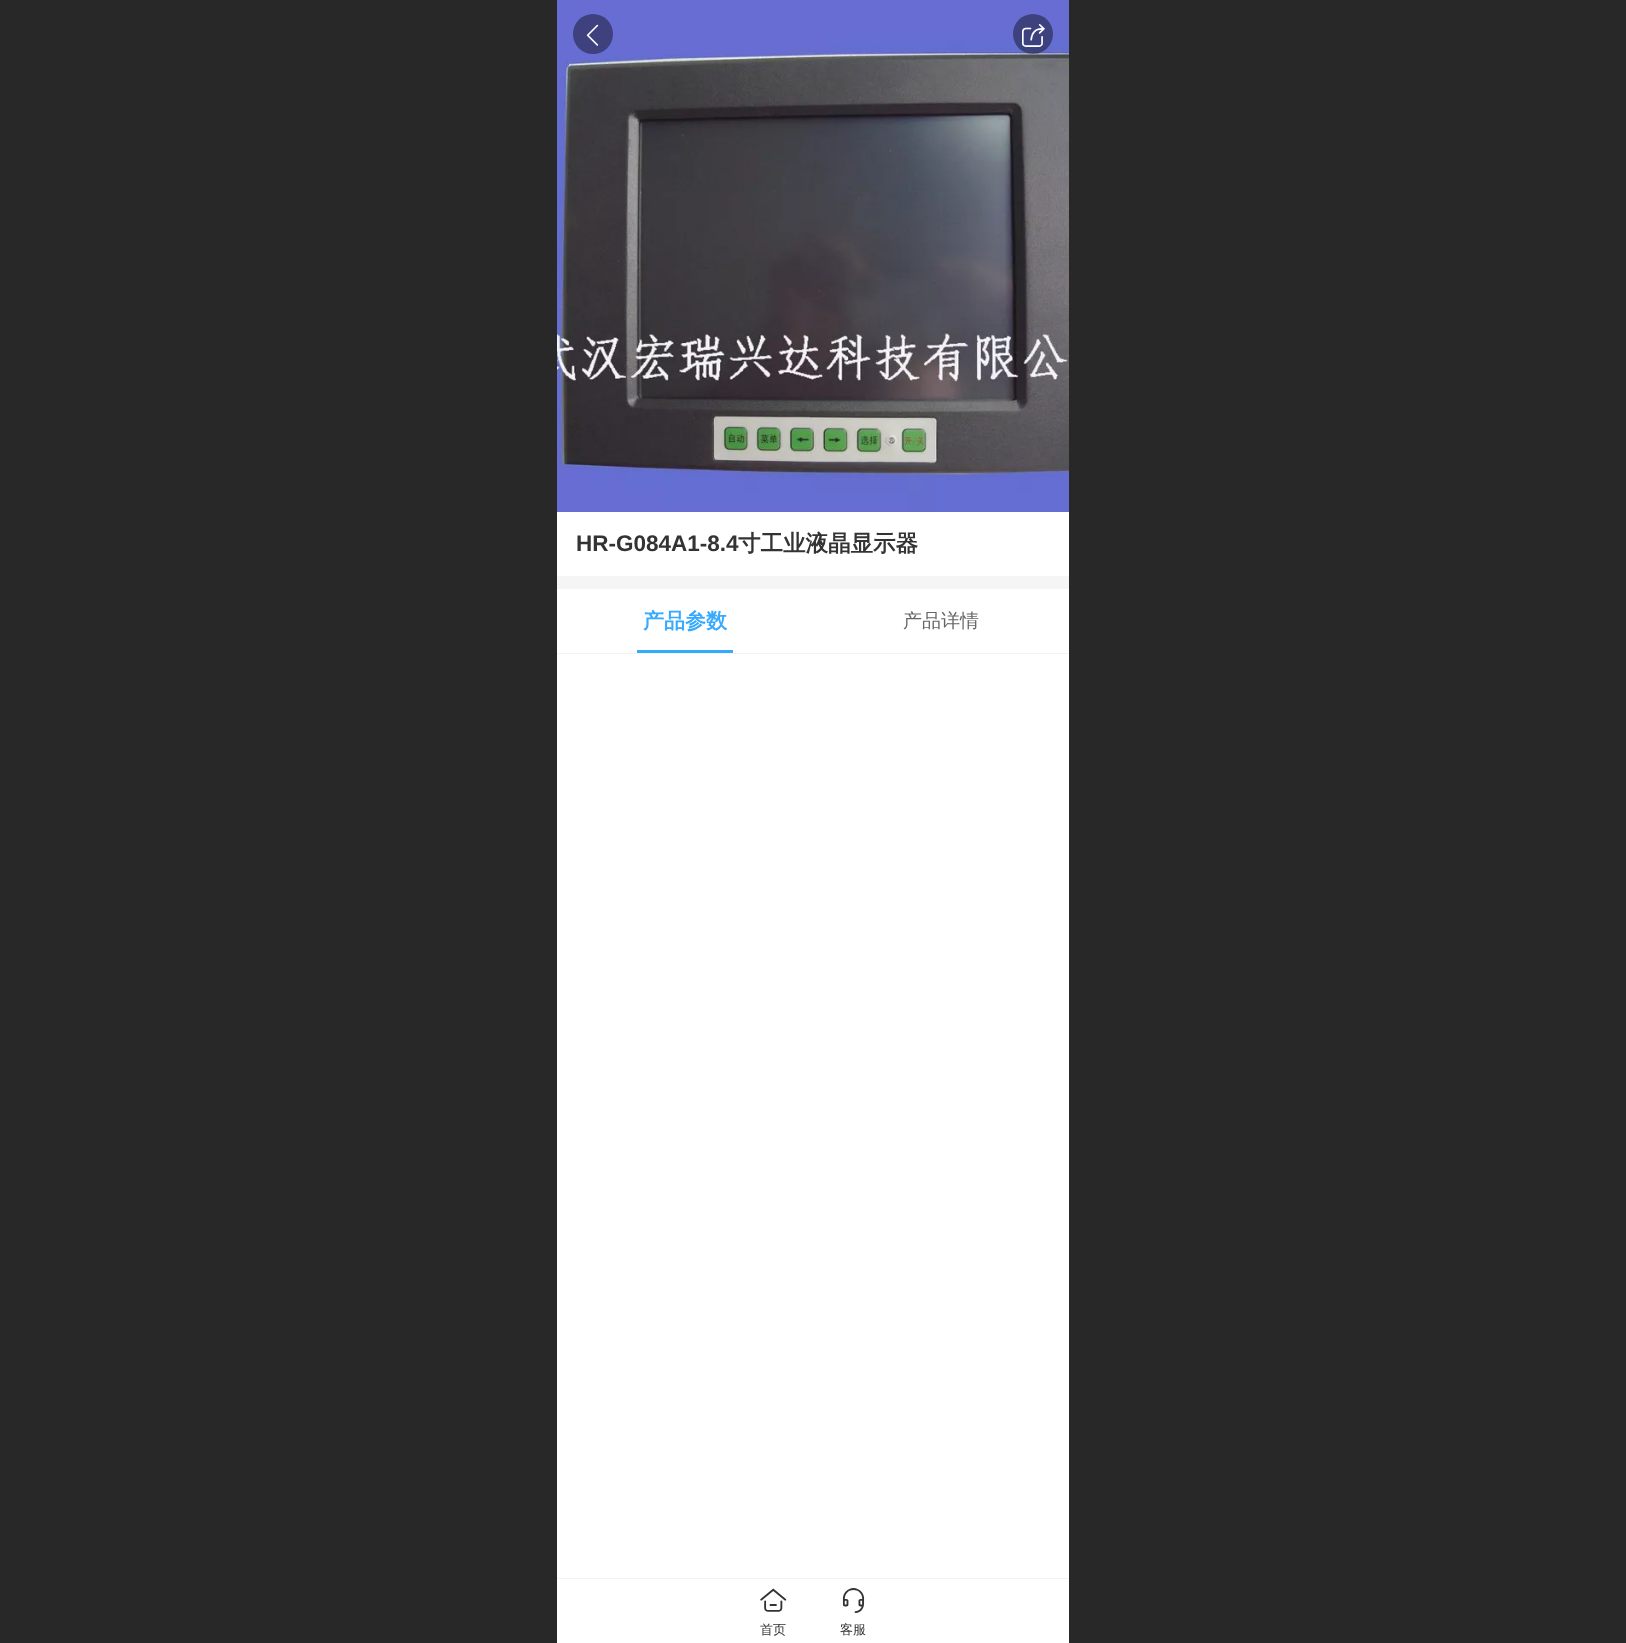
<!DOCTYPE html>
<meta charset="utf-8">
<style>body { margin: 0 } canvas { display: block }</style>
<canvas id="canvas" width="1626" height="1643"></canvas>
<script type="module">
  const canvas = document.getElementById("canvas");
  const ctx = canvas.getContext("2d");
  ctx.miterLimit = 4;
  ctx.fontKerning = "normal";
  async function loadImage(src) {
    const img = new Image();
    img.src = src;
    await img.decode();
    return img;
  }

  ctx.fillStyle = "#ffffff";
  ctx.fillRect(0, 0, 1626, 1643);
  ctx.fillStyle = "#282828";
  ctx.fillRect(0, 0, 557, 1643);
  ctx.drawImage(await loadImage("img1.png"), 557, 0, 512, 512);
  ctx.fillStyle = "#3e417e";
  ctx.beginPath();
  ctx.arc(593, 34, 20, 0, Math.PI * 2);
  ctx.fill();
  ctx.font = "21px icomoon";
  ctx.fillStyle = "#ffffff";
  ctx.fillText("򰊔", 582, 44);
  ctx.fillStyle = "rgba(0, 0, 0, 0.4)";
  ctx.beginPath();
  ctx.arc(1033, 34, 20, 0, Math.PI * 2);
  ctx.fill();
  ctx.font = "23px icomoon";
  ctx.fillStyle = "#ffffff";
  ctx.fillText("򰌑", 1022, 45);
  ctx.font = "bold 22.5px Liberation Sans";
  ctx.fillStyle = "#333333";
  ctx.fillText("HR-G084A1-8.4", 576, 551);
  ctx.font = "bold 22.5px WenQuanYi Zen Hei";
  ctx.fillText("寸工业液晶显示器", 738, 551);
  ctx.fillStyle = "#f5f5f5";
  ctx.fillRect(557, 576, 512, 13);
  ctx.fillStyle = "#f3f3f3";
  ctx.fillRect(557, 653, 512, 1);
  ctx.fillStyle = "#36aaff";
  ctx.fillRect(637, 650, 96, 3);
  ctx.font = "bold 21px WenQuanYi Zen Hei";
  ctx.fillText("产品参数", 643, 628);
  ctx.font = "500 19px WenQuanYi Zen Hei";
  ctx.fillStyle = "#666666";
  ctx.fillText("产品详情", 903, 627);
  ctx.fillStyle = "#f3f3f3";
  ctx.fillRect(557, 1578, 512, 1);
  ctx.font = "26px icomoon";
  ctx.fillStyle = "#333333";
  ctx.fillText("򰌓", 760, 1611);
  ctx.font = "500 13px WenQuanYi Zen Hei";
  ctx.fillText("首页", 760, 1634);
  ctx.font = "25px icomoon";
  ctx.fillText("򰊘", 841, 1611);
  ctx.font = "500 13px WenQuanYi Zen Hei";
  ctx.fillText("客服", 840, 1634);
  ctx.fillStyle = "#282828";
  ctx.fillRect(1069, 0, 557, 1643);
</script>
